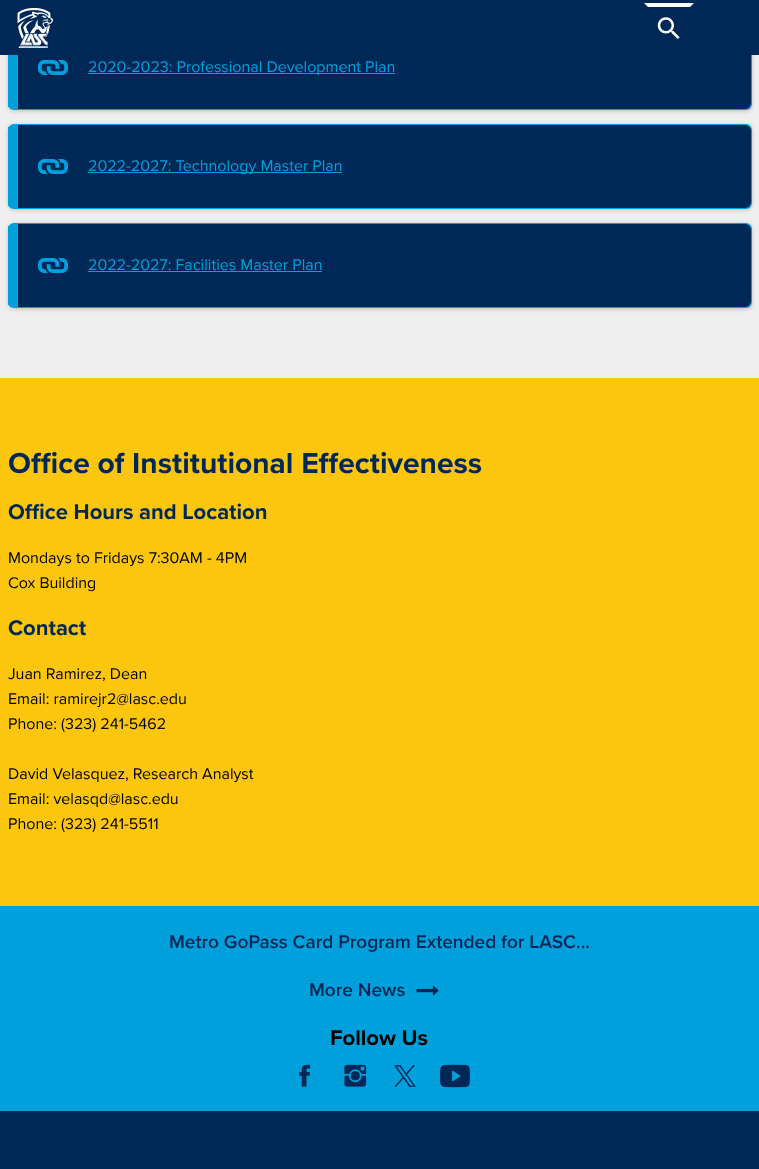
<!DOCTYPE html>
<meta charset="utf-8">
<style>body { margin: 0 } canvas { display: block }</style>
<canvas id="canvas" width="759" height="1169"></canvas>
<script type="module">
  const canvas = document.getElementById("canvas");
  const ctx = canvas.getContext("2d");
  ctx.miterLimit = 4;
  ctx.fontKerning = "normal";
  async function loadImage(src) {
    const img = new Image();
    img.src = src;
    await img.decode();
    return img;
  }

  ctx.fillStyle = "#efefef";
  ctx.fillRect(0, 0, 759, 1169);
  ctx.fillStyle = "rgba(0, 0, 0, 0.2)";
  ctx.filter = "blur(2px)";
  ctx.beginPath();
  ctx.roundRect(8, 26, 744, 85, 6);
  ctx.fill();
  ctx.filter = "none";
  ctx.fillStyle = "#00a0dd";
  ctx.beginPath();
  ctx.roundRect(8, 25, 744, 85, 6);
  ctx.fill();
  ctx.fillStyle = "#002856";
  ctx.beginPath();
  ctx.roundRect(18, 26, 733, 83, [0, 6, 6, 0]);
  ctx.fill();
  ctx.fillRect(0, 0, 759, 55);
  ctx.drawImage(await loadImage("img1.png"), 17, 8, 36, 40);
  ctx.drawImage(await loadImage("img2.png"), 657, 17, 23, 22);
  ctx.fillStyle = "#ffffff";
  ctx.beginPath();
  ctx.moveTo(644, 3);
  ctx.lineTo(694, 3);
  ctx.lineTo(690, 7);
  ctx.lineTo(648, 7);
  ctx.closePath();
  ctx.fill();
  ctx.fillStyle = "#00a0dd";
  ctx.fillRect(8, 104, 1, 3);
  ctx.drawImage(await loadImage("img3.png"), 38, 60, 30, 15);
  ctx.fillRect(88, 73, 307, 1);
  ctx.font = "16px Proxima Nova";
  ctx.fillText("2020-2023: Professional Development Plan", 88, 72);
  ctx.fillStyle = "rgba(0, 0, 0, 0.2)";
  ctx.filter = "blur(2px)";
  ctx.beginPath();
  ctx.roundRect(8, 125, 744, 85, 6);
  ctx.fill();
  ctx.filter = "none";
  ctx.fillStyle = "#00a0dd";
  ctx.beginPath();
  ctx.roundRect(8, 124, 744, 85, 6);
  ctx.fill();
  ctx.fillRect(8, 127, 1, 79);
  ctx.fillStyle = "#002856";
  ctx.beginPath();
  ctx.roundRect(18, 125, 733, 83, [0, 6, 6, 0]);
  ctx.fill();
  ctx.drawImage(await loadImage("img3.png"), 38, 159, 30, 15);
  ctx.fillStyle = "#00a0dd";
  ctx.fillRect(88, 172, 254, 1);
  ctx.fillText("2022-2027: Technology Master Plan", 88, 171);
  ctx.fillStyle = "rgba(0, 0, 0, 0.2)";
  ctx.filter = "blur(2px)";
  ctx.beginPath();
  ctx.roundRect(8, 224, 744, 85, 6);
  ctx.fill();
  ctx.filter = "none";
  ctx.fillStyle = "#00a0dd";
  ctx.beginPath();
  ctx.roundRect(8, 223, 744, 85, 6);
  ctx.fill();
  ctx.fillRect(8, 226, 1, 79);
  ctx.fillStyle = "#002856";
  ctx.beginPath();
  ctx.roundRect(18, 224, 733, 83, [0, 6, 6, 0]);
  ctx.fill();
  ctx.drawImage(await loadImage("img3.png"), 38, 258, 30, 15);
  ctx.fillStyle = "#00a0dd";
  ctx.fillText("2022-2027: Facilities Master Plan", 88, 270);
  ctx.fillRect(88, 271, 234, 1);
  ctx.fillStyle = "#fcc60e";
  ctx.fillRect(0, 378, 759, 528);
  ctx.font = "bold 30px Proxima Nova";
  ctx.fillStyle = "#002856";
  ctx.fillText("Office of Institutional Effectiveness", 8, 473);
  ctx.font = "bold 22px Proxima Nova";
  ctx.fillText("Office Hours and Location", 8, 519);
  ctx.font = "16px Proxima Nova";
  ctx.fillStyle = "#000000";
  ctx.fillText("Mondays to Fridays 7:30AM - 4PM", 8, 563);
  ctx.fillText("Cox Building", 8, 588);
  ctx.font = "bold 22px Proxima Nova";
  ctx.fillStyle = "#002856";
  ctx.fillText("Contact", 8, 635);
  ctx.font = "16px Proxima Nova";
  ctx.fillStyle = "#000000";
  ctx.fillText("Juan Ramirez, Dean", 8, 679);
  ctx.fillText("Email: ramirejr2@lasc.edu", 8, 704);
  ctx.fillText("Phone: (323) 241-5462", 8, 729);
  ctx.fillText("David Velasquez, Research Analyst", 8, 779);
  ctx.fillText("Email: velasqd@lasc.edu", 8, 804);
  ctx.fillText("Phone: (323) 241-5511", 8, 829);
  ctx.fillStyle = "#00a0dd";
  ctx.fillRect(0, 906, 759, 205);
  ctx.font = "600 19px Proxima Nova";
  ctx.fillStyle = "#002856";
  ctx.fillText("Metro GoPass Card Program Extended for LASC...", 169, 948);
  ctx.fillText("More News", 309, 996);
  ctx.drawImage(await loadImage("img4.png"), 416, 985, 23, 11);
  ctx.font = "bold 22px Proxima Nova";
  ctx.fillStyle = "#000000";
  ctx.fillText("Follow Us", 330, 1045);
  ctx.drawImage(await loadImage("img5.png"), 299, 1064, 12, 23);
  ctx.drawImage(await loadImage("img6.png"), 344, 1064, 23, 23);
  ctx.drawImage(await loadImage("img7.png"), 394, 1065, 22, 22);
  ctx.drawImage(await loadImage("img8.png"), 440, 1064, 30, 24);
  ctx.fillStyle = "#002856";
  ctx.fillRect(0, 1111, 759, 58);
</script>
